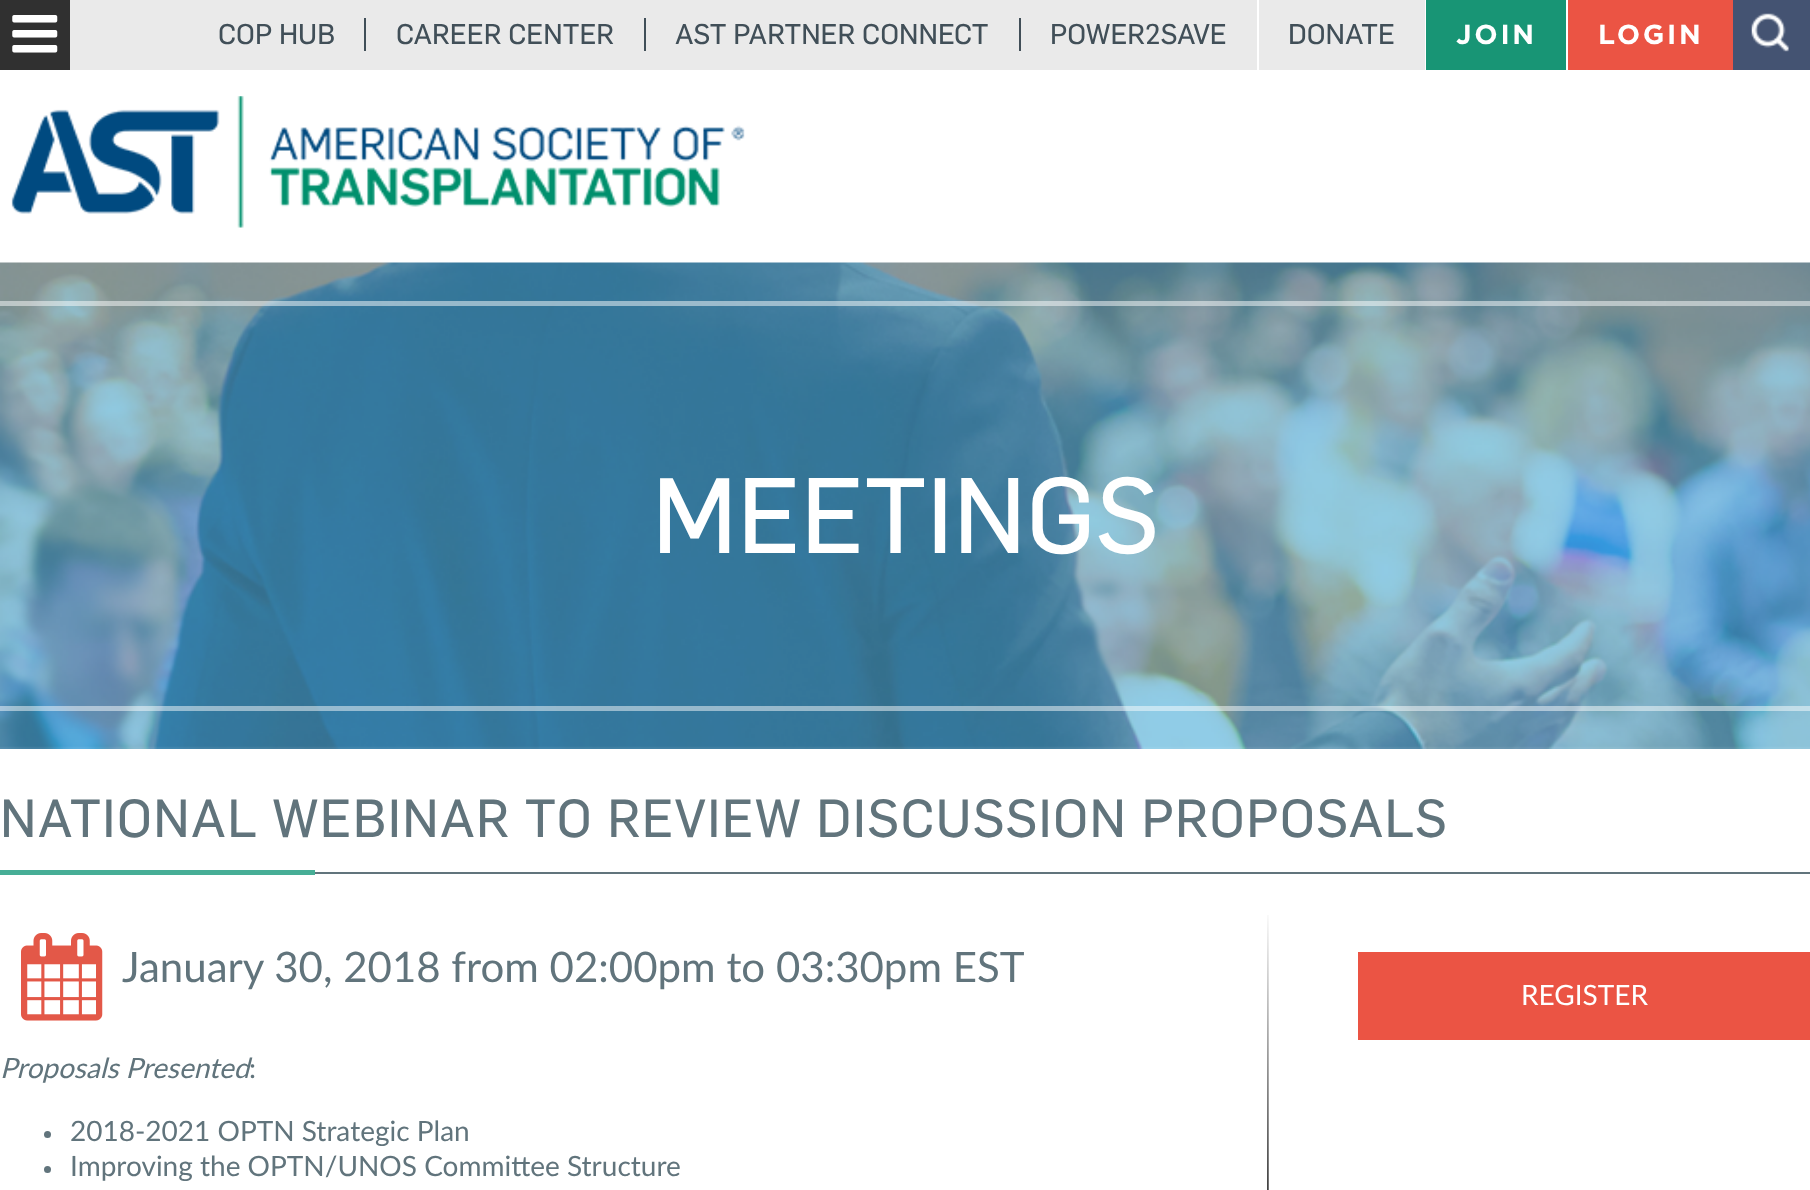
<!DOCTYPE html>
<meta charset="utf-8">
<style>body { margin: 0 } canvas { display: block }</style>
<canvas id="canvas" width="1810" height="1190"></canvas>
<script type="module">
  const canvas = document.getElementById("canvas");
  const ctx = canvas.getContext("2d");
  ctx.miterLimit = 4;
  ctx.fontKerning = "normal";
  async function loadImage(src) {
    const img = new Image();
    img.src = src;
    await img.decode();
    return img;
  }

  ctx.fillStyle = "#ffffff";
  ctx.fillRect(0, 0, 1810, 1190);
  ctx.fillStyle = "#303030";
  ctx.fillRect(0, 0, 70, 70);
  ctx.drawImage(await loadImage("img1.png"), 12, 15, 46, 38);
  ctx.fillStyle = "#eaeaea";
  ctx.fillRect(70, 0, 1355, 70);
  ctx.font = "600 28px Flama";
  ctx.fillStyle = "#414f58";
  ctx.fillText("COP HUB", 218, 44);
  ctx.fillRect(364, 18, 2, 33);
  ctx.fillText("CAREER CENTER", 396, 44);
  ctx.fillRect(644, 18, 2, 33);
  ctx.fillText("AST PARTNER CONNECT", 675, 44);
  ctx.fillRect(1019, 18, 2, 33);
  ctx.fillStyle = "#ffffff";
  ctx.fillRect(1257, 0, 2, 70);
  ctx.fillStyle = "#414f58";
  ctx.fillText("POWER2SAVE", 1050, 44);
  ctx.fillText("DONATE", 1288, 44);
  ctx.fillStyle = "#189575";
  ctx.fillRect(1426, 0, 140, 70);
  ctx.letterSpacing = "2.75px";
  ctx.font = "bold 27.5px Gotham";
  ctx.fillStyle = "#ffffff";
  ctx.fillText("JOIN", 1456, 44);
  ctx.fillStyle = "#eb5444";
  ctx.fillRect(1568, 0, 165, 70);
  ctx.fillStyle = "#ffffff";
  ctx.fillText("LOGIN", 1598, 44);
  ctx.fillStyle = "#445372";
  ctx.fillRect(1733, 0, 77, 70);
  ctx.drawImage(await loadImage("img2.png"), 1751, 13, 38, 39);
  ctx.drawImage(await loadImage("img3.png"), 11, 96, 734, 132);
  ctx.drawImage(await loadImage("img4.png"), 0, 262, 1810, 487);
  ctx.strokeStyle = "rgba(255, 255, 255, 0.49)";
  ctx.lineWidth = 5;
  ctx.strokeRect(-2.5, 303.5, 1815, 405);
  ctx.letterSpacing = "0px";
  ctx.font = "600 105px Flama";
  ctx.fillStyle = "#ffffff";
  ctx.fillText("MEETINGS", 652, 553);
  ctx.fillStyle = "#61747c";
  ctx.fillRect(315, 872, 1495, 2);
  ctx.letterSpacing = "1.3px";
  ctx.font = "600 52.5px Flama";
  ctx.fillText("NATIONAL WEBINAR TO REVIEW DISCUSSION PROPOSALS", 0, 837);
  ctx.fillStyle = "#47ae96";
  ctx.fillRect(0, 870, 315, 5);
  ctx.drawImage(await loadImage("img5.png"), 1267, 915, 2, 275);
  ctx.drawImage(await loadImage("img6.png"), 21, 933, 82, 88);
  ctx.letterSpacing = "0px";
  ctx.font = "42px Lato";
  ctx.fillStyle = "#61747c";
  ctx.fillText("January 30, 2018 from 02:00pm to 03:30pm EST", 122, 982);
  ctx.font = "italic 28px Lato";
  ctx.fillText("Proposals Presented", 0, 1078);
  ctx.font = "28px Lato";
  ctx.fillText(":", 249, 1078);
  ctx.beginPath();
  ctx.arc(47.5, 1134.5, 3.5, 0, Math.PI * 2);
  ctx.fill();
  ctx.fillText("2018-2021 OPTN Strategic Plan", 70, 1141);
  ctx.beginPath();
  ctx.arc(47.5, 1169.5, 3.5, 0, Math.PI * 2);
  ctx.fill();
  ctx.fillText("Improving the OPTN/UNOS Committee Structure", 70, 1176);
  ctx.fillStyle = "#eb5444";
  ctx.fillRect(1358, 952, 452, 88);
  ctx.fillStyle = "#ffffff";
  ctx.fillText("REGISTER", 1521, 1005);
</script>
